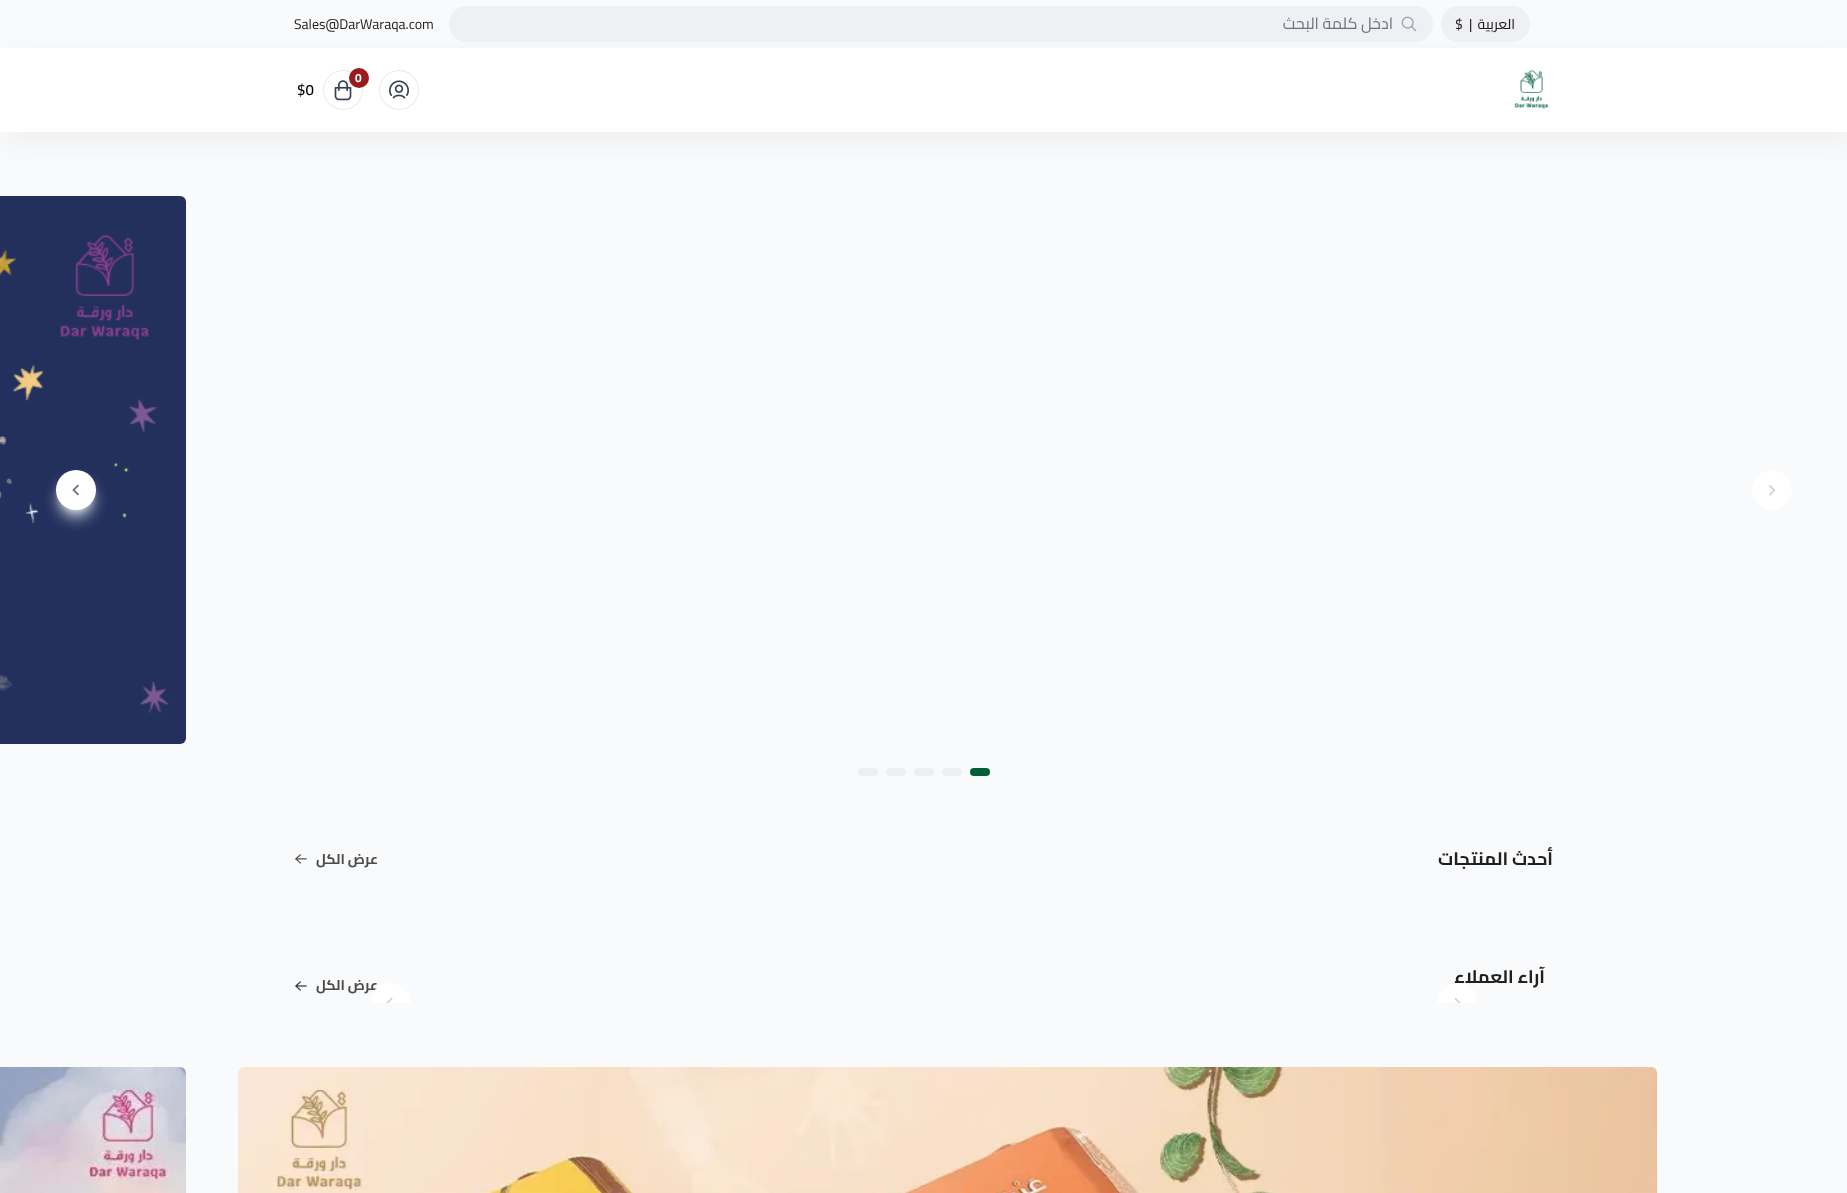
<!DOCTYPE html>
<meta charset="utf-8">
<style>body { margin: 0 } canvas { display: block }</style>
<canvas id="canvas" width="1847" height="1193"></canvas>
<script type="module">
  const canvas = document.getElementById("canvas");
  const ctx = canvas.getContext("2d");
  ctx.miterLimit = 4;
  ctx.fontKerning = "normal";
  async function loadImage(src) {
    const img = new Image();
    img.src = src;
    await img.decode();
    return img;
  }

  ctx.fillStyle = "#f9fafb";
  ctx.fillRect(0, 0, 1847, 1193);
  ctx.fillStyle = "rgba(43, 45, 52, 0.05)";
  ctx.filter = "blur(15px)";
  ctx.beginPath();
  ctx.rect(5, 58, 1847, 84);
  ctx.fill();
  ctx.filter = "none";
  ctx.fillStyle = "#eff0f3";
  ctx.beginPath();
  ctx.roundRect(1441, 6, 89, 36, 18);
  ctx.fill();
  ctx.direction = "rtl";
  ctx.font = "500 14px Cairo";
  ctx.fillStyle = "#231f1e";
  ctx.fillText("العربية", 1515, 29);
  ctx.direction = "ltr";
  ctx.fillText("|", 1469, 29);
  ctx.fillText("$", 1455, 29);
  ctx.fillStyle = "#eff0f3";
  ctx.beginPath();
  ctx.roundRect(449, 6, 984, 36, 18);
  ctx.fill();
  ctx.drawImage(await loadImage("img1.png"), 1401, 16, 16, 16);
  ctx.direction = "rtl";
  ctx.font = "16px Cairo";
  ctx.fillStyle = "#6b7280";
  ctx.fillText("ادخل كلمة البحث", 1393, 29);
  ctx.direction = "ltr";
  ctx.font = "14px Cairo";
  ctx.fillStyle = "#231f1e";
  ctx.fillText("Sales@DarWaraqa.com", 294, 29);
  ctx.fillStyle = "#ffffff";
  ctx.fillRect(0, 48, 1847, 84);
  ctx.drawImage(await loadImage("img2.png"), 1514, 69, 35, 41);
  ctx.beginPath();
  ctx.arc(399, 90, 19.5, 0, Math.PI * 2);
  ctx.strokeStyle = "#e5e7eb";
  ctx.stroke();
  ctx.drawImage(await loadImage("img3.png"), 389, 80, 20, 19);
  ctx.beginPath();
  ctx.arc(343, 90, 19.5, 0, Math.PI * 2);
  ctx.stroke();
  ctx.drawImage(await loadImage("img4.png"), 334, 80, 18, 21);
  ctx.fillStyle = "#991b1b";
  ctx.beginPath();
  ctx.arc(359, 78, 10, 0, Math.PI * 2);
  ctx.fill();
  ctx.font = "bold 12px Cairo";
  ctx.fillStyle = "#ffffff";
  ctx.fillText("0", 355, 82);
  ctx.font = "600 15px Cairo";
  ctx.fillStyle = "#000000";
  ctx.fillText("$0", 297, 95);
  ctx.drawImage(await loadImage("img5.png"), 0, 196, 186, 548);
  ctx.fillStyle = "#015f38";
  ctx.beginPath();
  ctx.roundRect(970, 768, 20, 8, 4);
  ctx.fill();
  ctx.fillStyle = "#edeff1";
  ctx.beginPath();
  ctx.roundRect(942, 768, 20, 8, 4);
  ctx.fill();
  ctx.beginPath();
  ctx.roundRect(914, 768, 20, 8, 4);
  ctx.fill();
  ctx.beginPath();
  ctx.roundRect(886, 768, 20, 8, 4);
  ctx.fill();
  ctx.beginPath();
  ctx.roundRect(858, 768, 20, 8, 4);
  ctx.fill();
  ctx.fillStyle = "#ffffff";
  ctx.beginPath();
  ctx.arc(1772, 490, 20, 0, Math.PI * 2);
  ctx.fill();
  ctx.drawImage(await loadImage("img6.png"), 1769, 485, 7, 11);
  ctx.fillStyle = "#d1d5db";
  ctx.filter = "blur(3px)";
  ctx.beginPath();
  ctx.roundRect(60, 478, 32, 32, 16);
  ctx.fill();
  ctx.filter = "none";
  ctx.filter = "blur(7.5px)";
  ctx.beginPath();
  ctx.roundRect(59, 483, 34, 34, 17);
  ctx.fill();
  ctx.filter = "none";
  ctx.fillStyle = "#ffffff";
  ctx.beginPath();
  ctx.arc(76, 490, 20, 0, Math.PI * 2);
  ctx.fill();
  ctx.drawImage(await loadImage("img7.png"), 72, 484, 7, 12);
  ctx.direction = "rtl";
  ctx.font = "bold 18px Cairo";
  ctx.fillStyle = "#231f1e";
  ctx.fillText("أحدث المنتجات", 1553, 865);
  ctx.font = "bold 14px Cairo";
  ctx.fillStyle = "#4e4b4a";
  ctx.fillText("عرض الكل", 378, 864);
  ctx.drawImage(await loadImage("img8.png"), 295, 854, 12, 10);
  ctx.font = "bold 18px Cairo";
  ctx.fillStyle = "#231f1e";
  ctx.fillText("آراء العملاء", 1545, 983);
  ctx.font = "bold 14px Cairo";
  ctx.fillStyle = "#4e4b4a";
  ctx.fillText("عرض الكل", 378, 990);
  ctx.drawImage(await loadImage("img9.png"), 295, 981, 12, 10);
  ctx.fillStyle = "#ffffff";
  ctx.beginPath();
  ctx.roundRect(1438, 983, 40, 20, [20, 20, 0, 0]);
  ctx.fill();
  ctx.drawImage(await loadImage("img10.png"), 1454, 998, 7, 5);
  ctx.beginPath();
  ctx.roundRect(370, 983, 40, 20, [20, 20, 0, 0]);
  ctx.fill();
  ctx.drawImage(await loadImage("img11.png"), 386, 997, 7, 6);
  ctx.drawImage(await loadImage("img12.png"), 238, 1067, 1419, 126);
  ctx.drawImage(await loadImage("img13.png"), 0, 1067, 186, 126);
</script>
